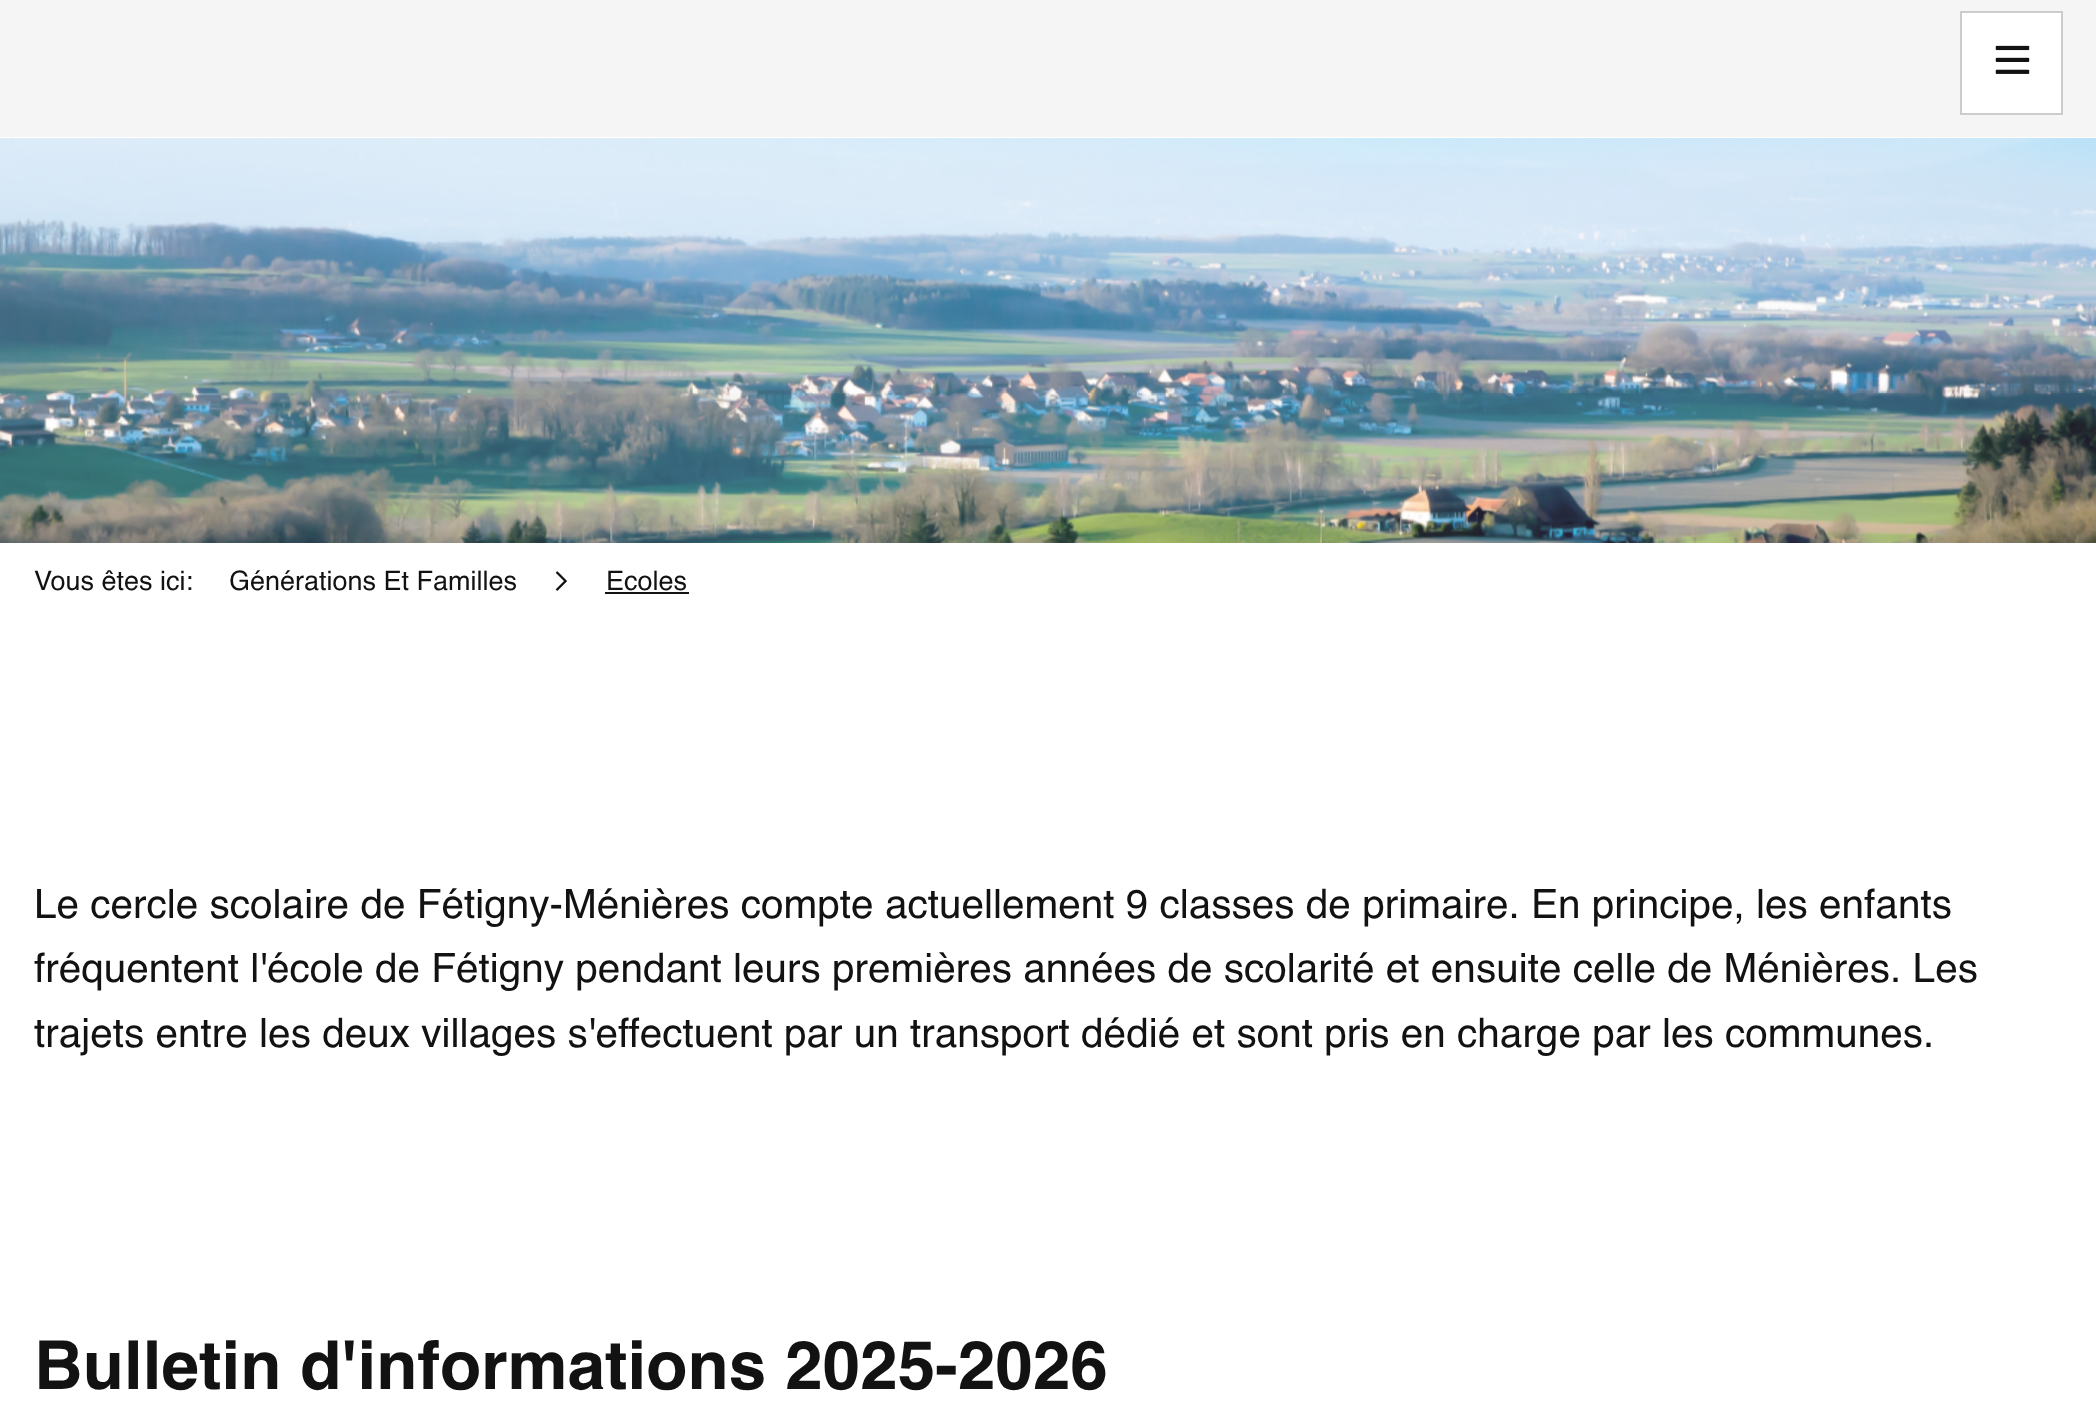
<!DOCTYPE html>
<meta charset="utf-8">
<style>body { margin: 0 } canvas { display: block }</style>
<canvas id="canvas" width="2096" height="1402"></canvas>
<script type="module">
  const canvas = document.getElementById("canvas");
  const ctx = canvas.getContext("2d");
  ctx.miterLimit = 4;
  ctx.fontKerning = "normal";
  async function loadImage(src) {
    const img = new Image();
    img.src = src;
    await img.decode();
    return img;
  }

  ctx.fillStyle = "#ffffff";
  ctx.fillRect(0, 0, 2096, 1402);
  ctx.fillStyle = "#f5f5f5";
  ctx.fillRect(0, 0, 2096, 137);
  ctx.fillStyle = "#ffffff";
  ctx.beginPath();
  ctx.rect(1961, 12, 101, 102);
  ctx.fill();
  ctx.strokeStyle = "#cccccc";
  ctx.lineWidth = 2;
  ctx.stroke();
  ctx.drawImage(await loadImage("img1.png"), 1995, 45, 35, 29);
  ctx.drawImage(await loadImage("img2.png"), 0, 138, 2096, 405);
  ctx.font = "27px Helvetica";
  ctx.fillStyle = "#121212";
  ctx.fillText("Vous êtes ici:", 34, 590);
  ctx.fillText("Générations Et Familles", 229, 590);
  ctx.drawImage(await loadImage("img3.png"), 555, 571, 12, 20);
  ctx.fillText("Ecoles", 606, 590);
  ctx.fillRect(605, 592, 84, 2);
  ctx.font = "40.5px Helvetica";
  ctx.fillText("Le cercle scolaire de Fétigny-Ménières compte actuellement 9 classes de primaire. En principe, les enfants", 34, 918);
  ctx.fillText("fréquentent l'école de Fétigny pendant leurs premières années de scolarité et ensuite celle de Ménières. Les", 34, 982);
  ctx.fillText("trajets entre les deux villages s'effectuent par un transport dédié et sont pris en charge par les communes.", 34, 1047);
  ctx.font = "bold 67.5px Helvetica";
  ctx.fillText("Bulletin d'informations 2025-2026", 34, 1389);
</script>
